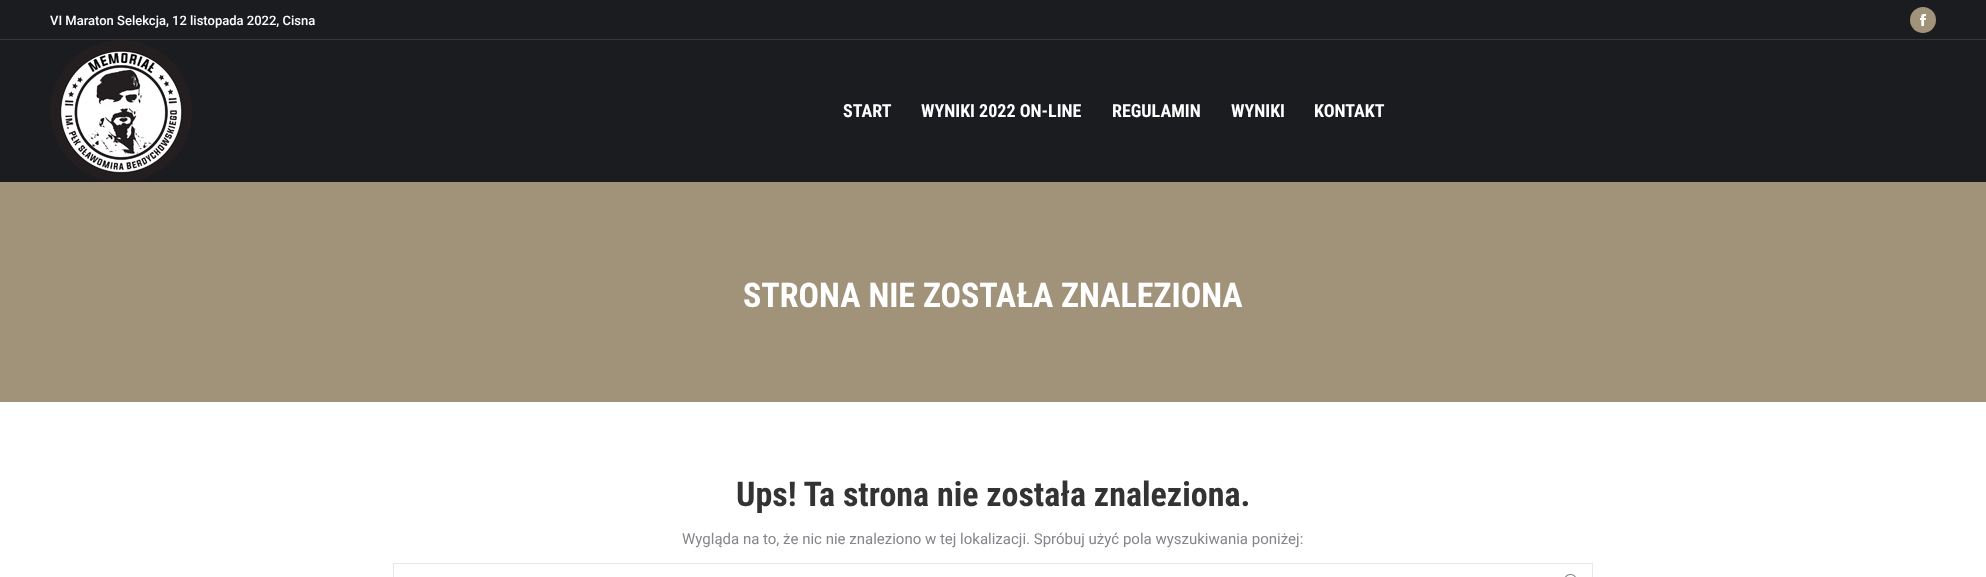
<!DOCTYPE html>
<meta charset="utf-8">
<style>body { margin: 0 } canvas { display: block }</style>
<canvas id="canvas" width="1986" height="577"></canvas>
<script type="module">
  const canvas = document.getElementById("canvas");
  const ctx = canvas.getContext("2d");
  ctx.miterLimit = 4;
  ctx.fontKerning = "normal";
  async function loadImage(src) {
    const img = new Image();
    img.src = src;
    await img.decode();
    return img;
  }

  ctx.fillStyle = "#ffffff";
  ctx.fillRect(0, 0, 1986, 577);
  ctx.fillStyle = "#1a1c20";
  ctx.fillRect(0, 0, 1986, 182);
  ctx.font = "500 13px Roboto";
  ctx.fillStyle = "#ffffff";
  ctx.fillText("VI Maraton Selekcja, 12 listopada 2022, Cisna", 50, 25);
  ctx.fillStyle = "#a0937a";
  ctx.beginPath();
  ctx.arc(1923, 20, 13, 0, Math.PI * 2);
  ctx.fill();
  ctx.drawImage(await loadImage("img1.png"), 1920, 14, 6, 12);
  ctx.fillStyle = "#35373b";
  ctx.fillRect(0, 39, 1986, 1);
  ctx.drawImage(await loadImage("img2.png"), 50, 40, 142, 142);
  ctx.font = "bold 18px Roboto Condensed";
  ctx.fillStyle = "#ffffff";
  ctx.fillText("START", 843, 117);
  ctx.fillText("WYNIKI 2022 ON-LINE", 921, 117);
  ctx.fillText("REGULAMIN", 1112, 117);
  ctx.fillText("WYNIKI", 1231, 117);
  ctx.fillText("KONTAKT", 1314, 117);
  ctx.fillStyle = "#a0937a";
  ctx.fillRect(0, 182, 1986, 220);
  ctx.font = "bold 34px Roboto Condensed";
  ctx.fillStyle = "#ffffff";
  ctx.fillText("STRONA NIE ZOSTAŁA ZNALEZIONA", 743, 307);
  ctx.fillStyle = "#333333";
  ctx.fillText("Ups! Ta strona nie została znaleziona.", 736, 506);
  ctx.font = "15px Roboto";
  ctx.fillStyle = "#85868c";
  ctx.fillText("Wygląda na to, że nic nie znaleziono w tej lokalizacji. Spróbuj użyć pola wyszukiwania poniżej:", 682, 544);
  ctx.strokeStyle = "#e7e7e7";
  ctx.strokeRect(393.5, 563.5, 1199, 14);
  ctx.drawImage(await loadImage("img3.png"), 1565, 574, 11, 3);
</script>
